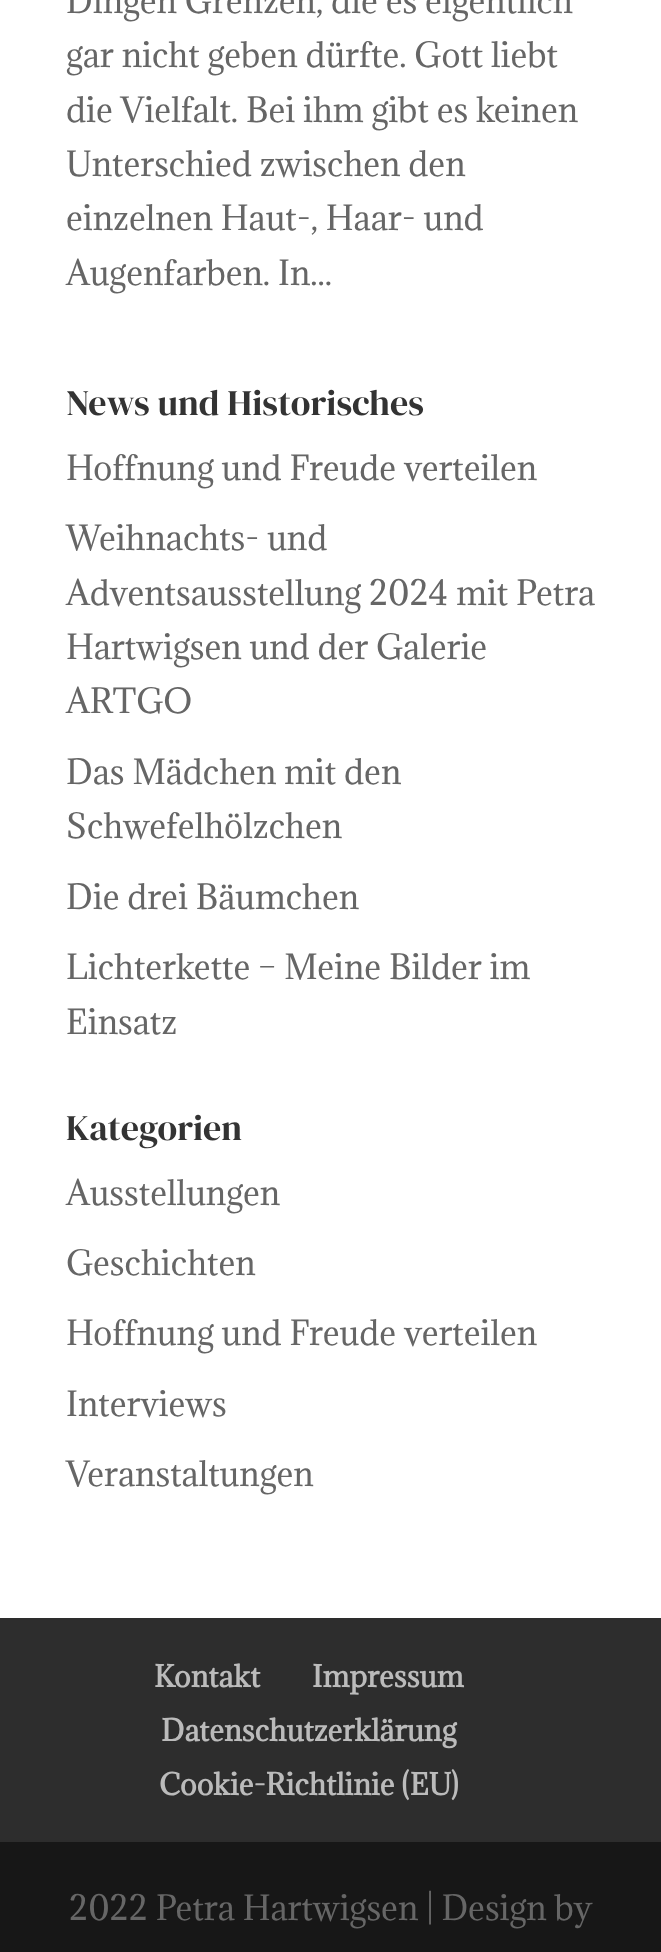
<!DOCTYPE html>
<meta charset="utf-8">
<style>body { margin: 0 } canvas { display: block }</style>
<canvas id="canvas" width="661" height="1952"></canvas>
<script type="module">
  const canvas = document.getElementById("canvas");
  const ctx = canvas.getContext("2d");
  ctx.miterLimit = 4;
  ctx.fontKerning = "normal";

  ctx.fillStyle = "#ffffff";
  ctx.fillRect(0, 0, 661, 1952);
  ctx.font = "32px Adamina";
  ctx.fillStyle = "#666666";
  ctx.fillText("Dingen Grenzen, die es eigentlich", 66, 13);
  ctx.fillText("gar nicht geben dürfte. Gott liebt", 66, 67);
  ctx.fillText("die Vielfalt. Bei ihm gibt es keinen", 66, 122);
  ctx.fillText("Unterschied zwischen den", 66, 176);
  ctx.fillText("einzelnen Haut-, Haar- und", 66, 230);
  ctx.fillText("Augenfarben. In...", 66, 285);
  ctx.font = "36px DM Serif Display";
  ctx.fillStyle = "#333333";
  ctx.fillText("News und Historisches", 66, 415);
  ctx.font = "32px Adamina";
  ctx.fillStyle = "#666666";
  ctx.fillText("Hoffnung und Freude verteilen", 66, 480);
  ctx.fillText("Weihnachts- und", 66, 550);
  ctx.fillText("Adventsausstellung 2024 mit Petra", 66, 605);
  ctx.fillText("Hartwigsen und der Galerie", 66, 659);
  ctx.fillText("ARTGO", 66, 713);
  ctx.fillText("Das Mädchen mit den", 66, 784);
  ctx.fillText("Schwefelhölzchen", 66, 838);
  ctx.fillText("Die drei Bäumchen", 66, 909);
  ctx.fillText("Lichterkette – Meine Bilder im", 66, 979);
  ctx.fillText("Einsatz", 66, 1034);
  ctx.font = "36px DM Serif Display";
  ctx.fillStyle = "#333333";
  ctx.fillText("Kategorien", 66, 1140);
  ctx.font = "32px Adamina";
  ctx.fillStyle = "#666666";
  ctx.fillText("Ausstellungen", 66, 1205);
  ctx.fillText("Geschichten", 66, 1275);
  ctx.fillText("Hoffnung und Freude verteilen", 66, 1345);
  ctx.fillText("Interviews", 66, 1416);
  ctx.fillText("Veranstaltungen", 66, 1486);
  ctx.fillStyle = "#2d2d2d";
  ctx.fillRect(0, 1618, 661, 224);
  ctx.font = "bold 28px Adamina";
  ctx.fillStyle = "#bbbbbb";
  ctx.fillText("Kontakt", 154, 1687);
  ctx.fillText("Impressum", 312, 1687);
  ctx.fillText("Datenschutzerklärung", 161, 1741);
  ctx.fillText("Cookie-Richtlinie (EU)", 159, 1795);
  ctx.fillStyle = "#171717";
  ctx.fillRect(0, 1842, 661, 110);
  ctx.font = "32px Adamina";
  ctx.fillStyle = "#666666";
  ctx.fillText("2022 Petra Hartwigsen | Design by", 69, 1920);
</script>
